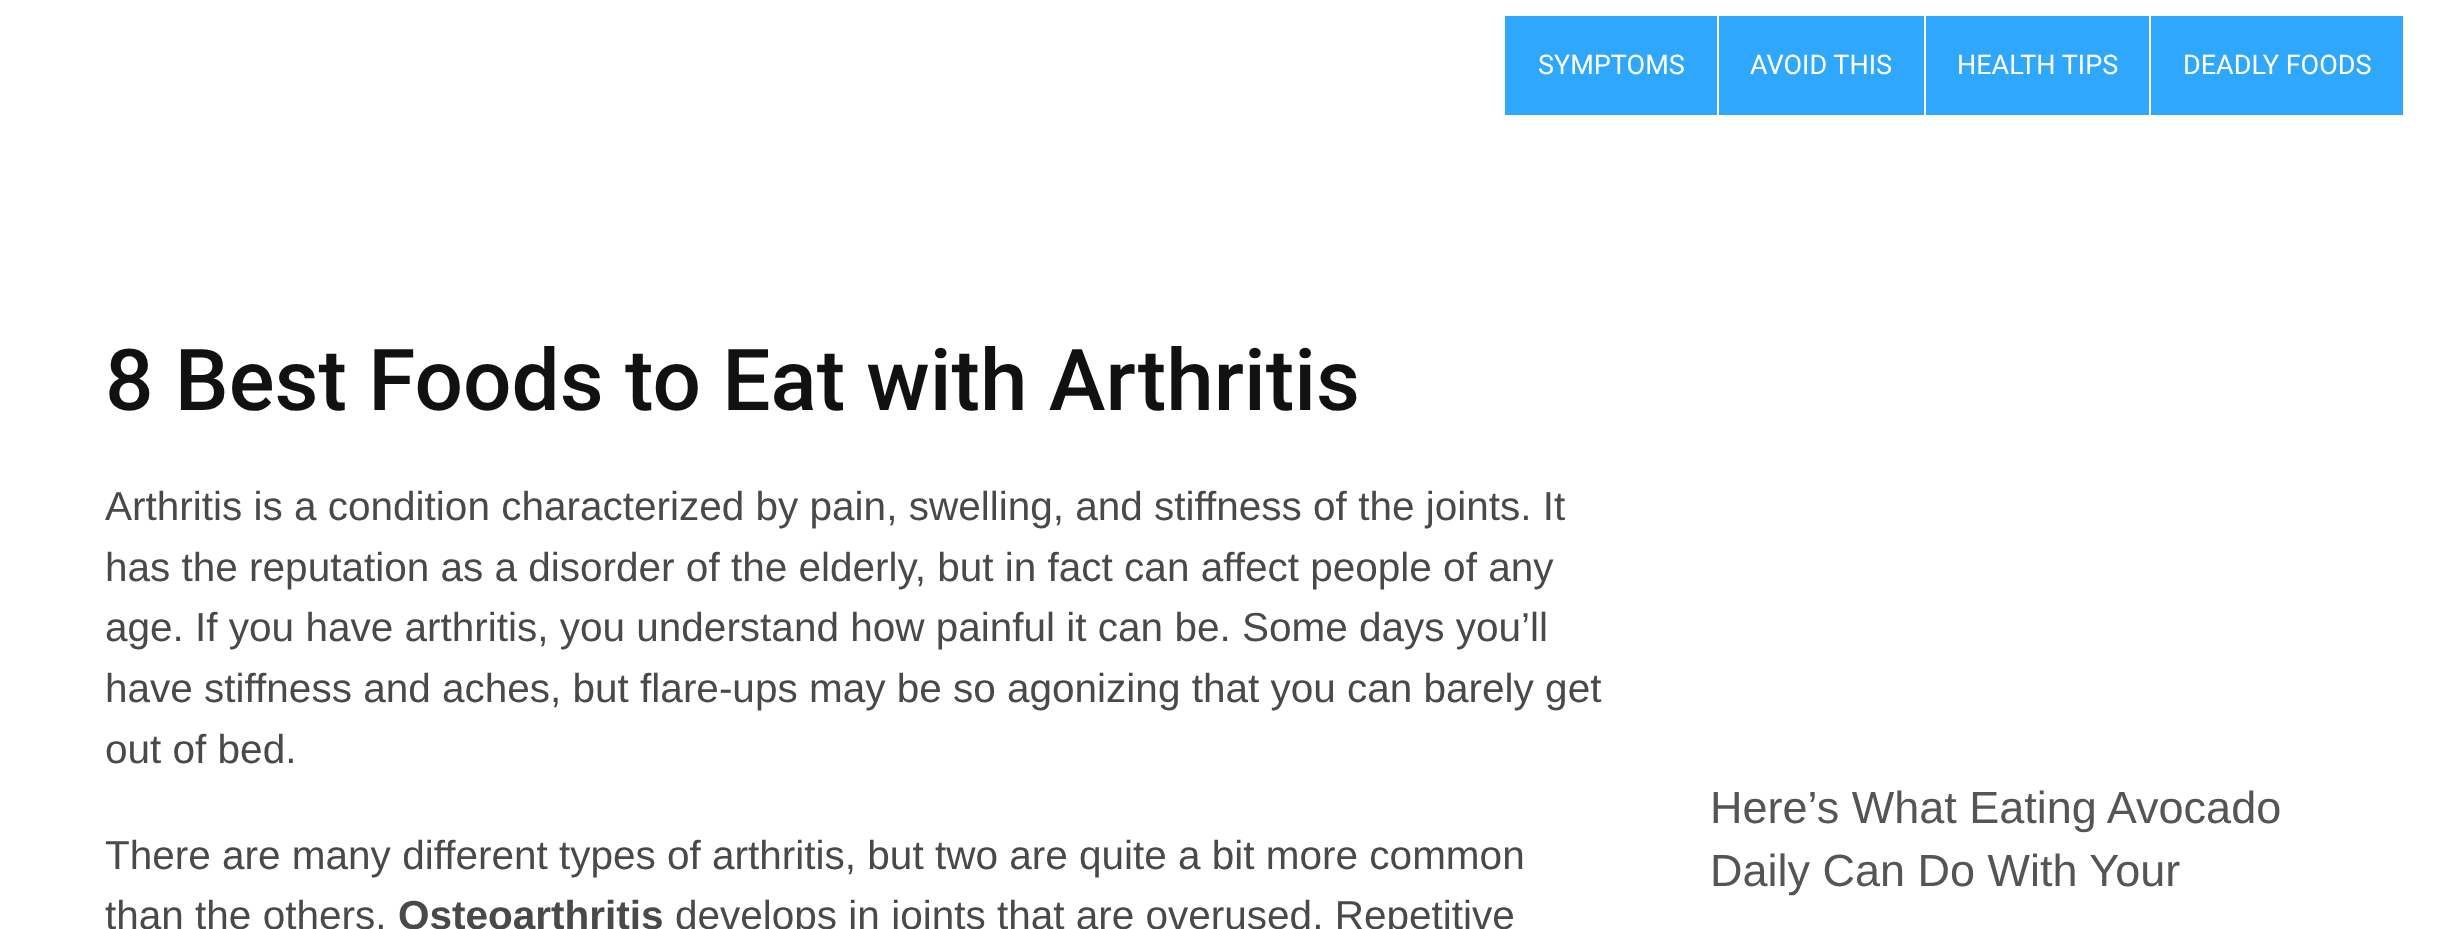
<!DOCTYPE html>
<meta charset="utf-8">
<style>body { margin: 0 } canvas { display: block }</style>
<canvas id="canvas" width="2453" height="929"></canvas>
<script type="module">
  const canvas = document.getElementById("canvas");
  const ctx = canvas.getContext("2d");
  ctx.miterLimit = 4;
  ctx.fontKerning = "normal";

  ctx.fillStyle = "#ffffff";
  ctx.fillRect(0, 0, 2453, 929);
  ctx.fillStyle = "#2fa7fc";
  ctx.fillRect(1505, 16, 898, 99);
  ctx.fillStyle = "#ffffff";
  ctx.fillRect(1717, 16, 2, 99);
  ctx.font = "27px Roboto";
  ctx.fillText("SYMPTOMS", 1538, 74);
  ctx.fillRect(1924, 16, 2, 99);
  ctx.fillText("AVOID THIS", 1750, 74);
  ctx.fillRect(2149, 16, 2, 99);
  ctx.fillText("HEALTH TIPS", 1957, 74);
  ctx.fillText("DEADLY FOODS", 2183, 74);
  ctx.font = "500 85.5px Roboto";
  ctx.fillStyle = "#111111";
  ctx.fillText("8 Best Foods to Eat with Arthritis", 105, 410);
  ctx.font = "40.5px Liberation Sans";
  ctx.fillStyle = "#494949";
  ctx.fillText("Arthritis is a condition characterized by pain, swelling, and stiffness of the joints. It", 105, 520);
  ctx.fillText("has the reputation as a disorder of the elderly, but in fact can affect people of any", 105, 581);
  ctx.fillText("age. If you have arthritis, you understand how painful it can be. Some days you’ll", 105, 641);
  ctx.fillText("have stiffness and aches, but flare-ups may be so agonizing that you can barely get", 105, 702);
  ctx.fillText("out of bed.", 105, 763);
  ctx.fillText("There are many different types of arthritis, but two are quite a bit more common", 105, 869);
  ctx.fillText("than the others.", 105, 929);
  ctx.font = "bold 40.5px Liberation Sans";
  ctx.fillText("Osteoarthritis", 398, 929);
  ctx.font = "40.5px Liberation Sans";
  ctx.fillText("develops in joints that are overused. Repetitive", 675, 929);
  ctx.font = "45px Liberation Sans";
  ctx.fillStyle = "#555555";
  ctx.fillText("Here’s What Eating Avocado", 1710, 823);
  ctx.fillText("Daily Can Do With Your", 1710, 886);
</script>
